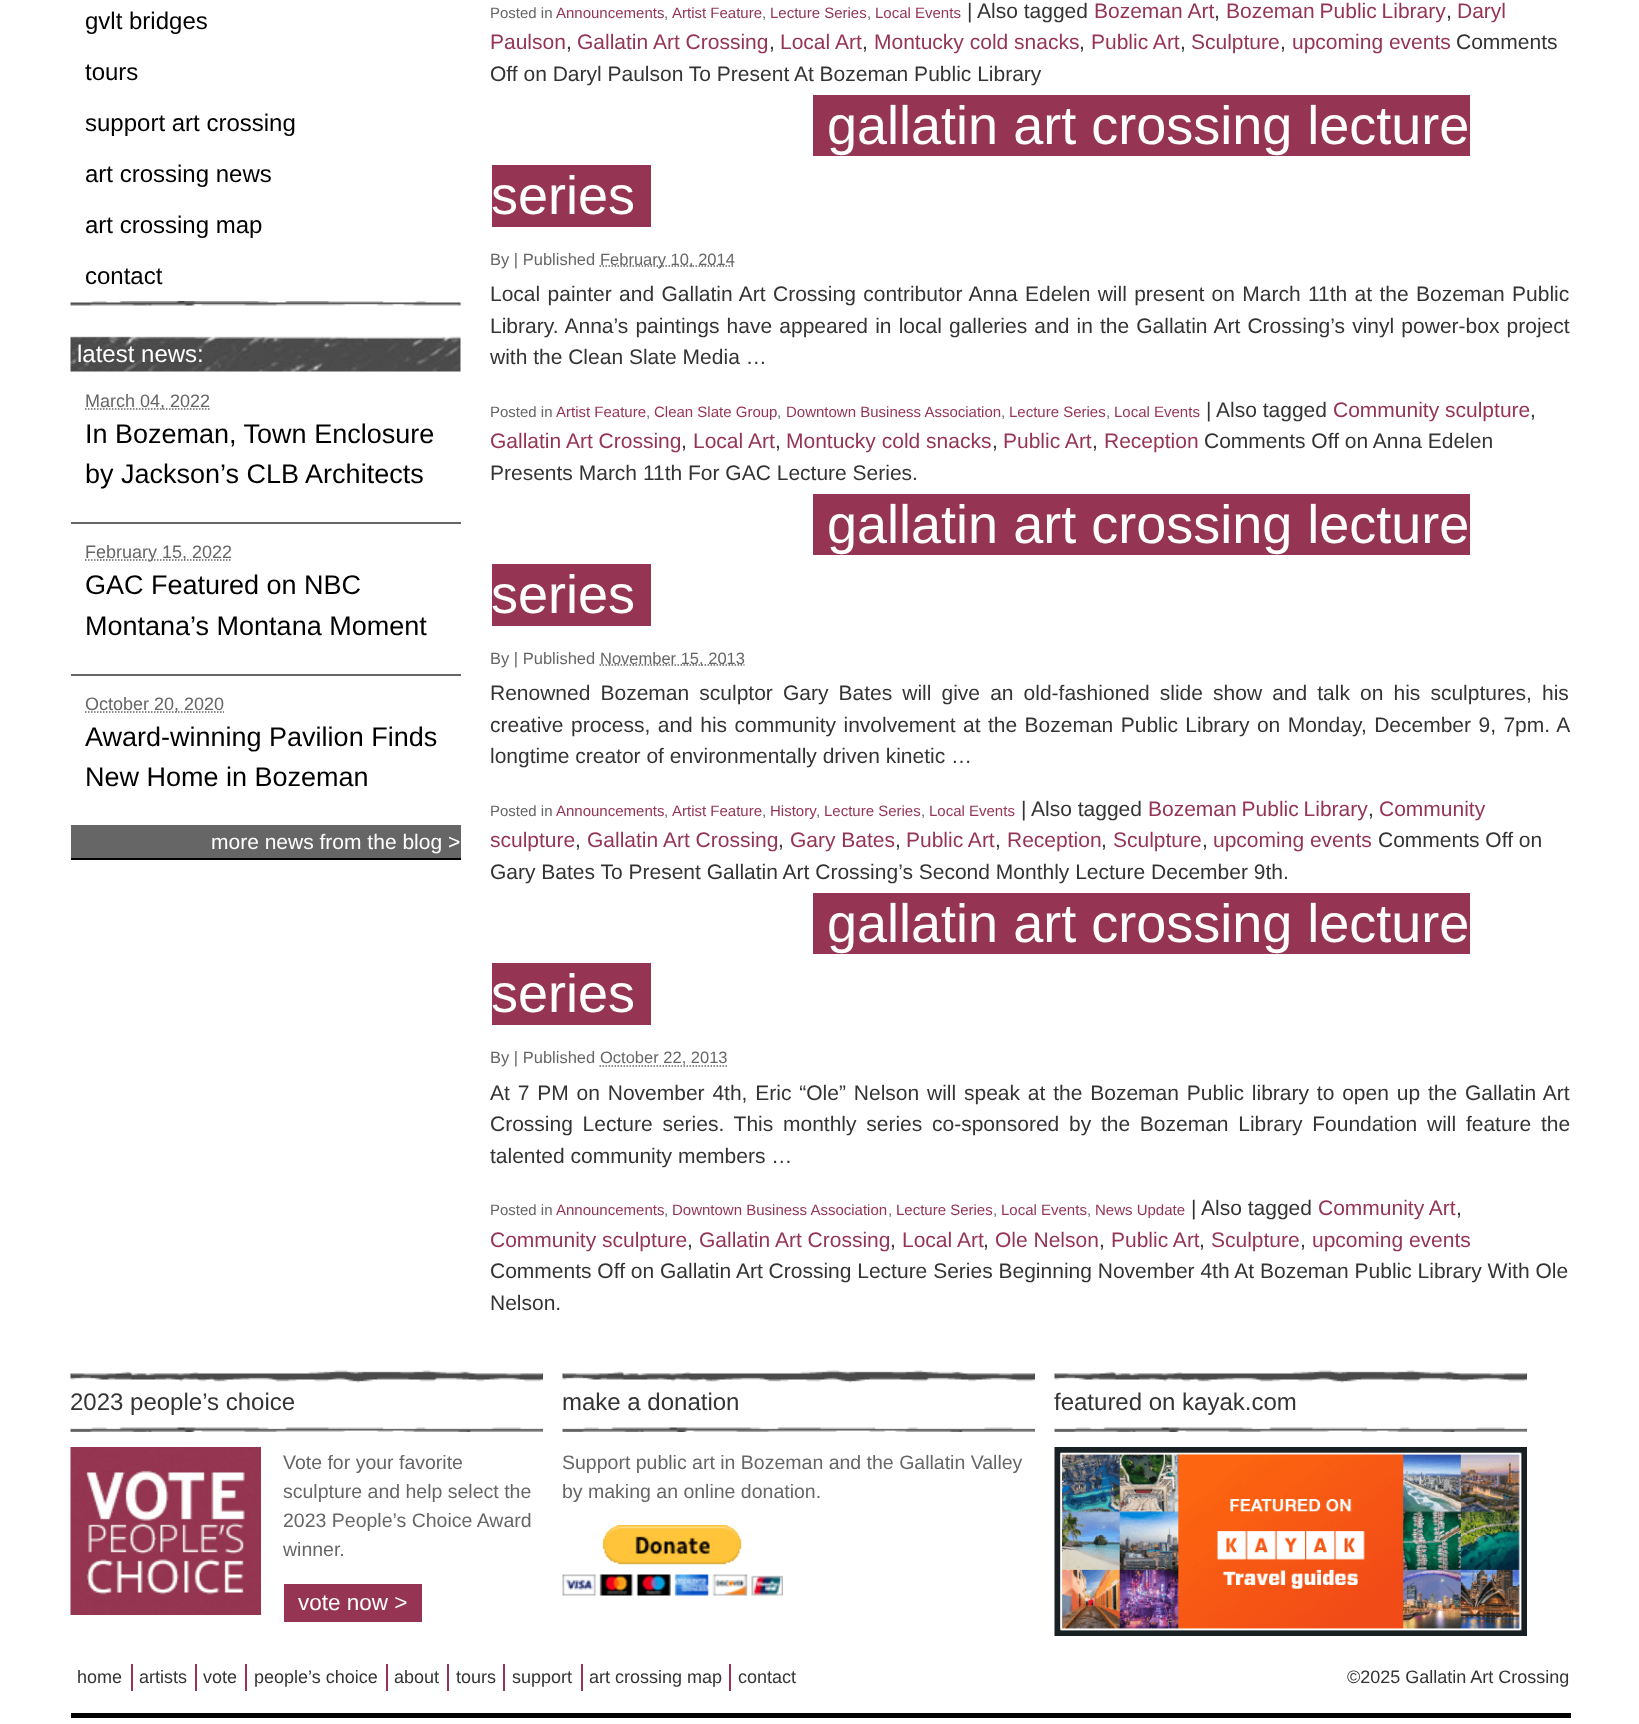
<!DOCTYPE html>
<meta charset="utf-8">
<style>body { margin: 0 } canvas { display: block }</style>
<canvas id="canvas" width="1639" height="1724"></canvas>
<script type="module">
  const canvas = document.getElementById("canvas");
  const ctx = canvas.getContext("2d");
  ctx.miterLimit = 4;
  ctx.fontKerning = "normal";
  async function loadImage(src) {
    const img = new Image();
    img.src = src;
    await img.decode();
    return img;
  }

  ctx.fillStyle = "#ffffff";
  ctx.fillRect(0, 0, 1639, 1724);
  ctx.font = "24px Liberation Sans";
  ctx.fillStyle = "#000000";
  ctx.fillText("gvlt bridges", 85, 29);
  ctx.fillText("tours", 85, 80);
  ctx.fillText("support art crossing", 85, 131);
  ctx.fillText("art crossing news", 85, 182);
  ctx.fillText("art crossing map", 85, 233);
  ctx.fillText("contact", 85, 284);
  ctx.drawImage(await loadImage("img1.png"), 70, 301, 391, 5);
  ctx.fillRect(71, 858, 390, 2);
  ctx.drawImage(await loadImage("img2.png"), 70, 335, 391, 37);
  ctx.fillStyle = "#ffffff";
  ctx.fillText("latest news:", 77, 362);
  ctx.fillStyle = "#666666";
  ctx.fillRect(71, 522, 390, 2);
  ctx.beginPath();
  ctx.moveTo(85, 409);
  ctx.lineTo(210, 409);
  ctx.strokeStyle = "#666666";
  ctx.lineWidth = 1.5;
  ctx.setLineDash([1.5, 1.5]);
  ctx.stroke();
  ctx.font = "18px Liberation Sans";
  ctx.fillText("March 04, 2022", 85, 407);
  ctx.font = "27px Liberation Sans";
  ctx.fillStyle = "#000000";
  ctx.fillText("In Bozeman, Town Enclosure", 85, 443);
  ctx.fillText("by Jackson’s CLB Architects", 85, 483);
  ctx.fillStyle = "#666666";
  ctx.fillRect(71, 674, 390, 2);
  ctx.beginPath();
  ctx.moveTo(85, 560);
  ctx.lineTo(232, 560);
  ctx.stroke();
  ctx.font = "18px Liberation Sans";
  ctx.fillText("February 15, 2022", 85, 558);
  ctx.font = "27px Liberation Sans";
  ctx.fillStyle = "#000000";
  ctx.fillText("GAC Featured on NBC", 85, 594);
  ctx.fillText("Montana’s Montana Moment", 85, 635);
  ctx.fillStyle = "#666666";
  ctx.fillRect(71, 825, 390, 33);
  ctx.beginPath();
  ctx.moveTo(85, 712);
  ctx.lineTo(224, 712);
  ctx.stroke();
  ctx.font = "18px Liberation Sans";
  ctx.fillText("October 20, 2020", 85, 710);
  ctx.font = "27px Liberation Sans";
  ctx.fillStyle = "#000000";
  ctx.fillText("Award-winning Pavilion Finds", 85, 746);
  ctx.fillText("New Home in Bozeman", 85, 786);
  ctx.font = "21px Liberation Sans";
  ctx.fillStyle = "#ffffff";
  ctx.fillText("more news from the blog >", 211, 849);
  ctx.font = "15px Liberation Sans";
  ctx.fillStyle = "#666666";
  ctx.fillText("Posted in", 490, 18);
  ctx.fillStyle = "#953553";
  ctx.fillText("Announcements", 556, 18);
  ctx.fillStyle = "#666666";
  ctx.fillText(",", 664, 18);
  ctx.fillStyle = "#953553";
  ctx.fillText("Artist Feature", 672, 18);
  ctx.fillStyle = "#666666";
  ctx.fillText(",", 762, 18);
  ctx.fillStyle = "#953553";
  ctx.fillText("Lecture Series", 770, 18);
  ctx.fillStyle = "#666666";
  ctx.fillText(",", 867, 18);
  ctx.fillStyle = "#953553";
  ctx.fillText("Local Events", 875, 18);
  ctx.font = "21px Liberation Sans";
  ctx.fillStyle = "#343434";
  ctx.fillText("|", 967, 18);
  ctx.fillText("Also tagged", 977, 18);
  ctx.fillStyle = "#953553";
  ctx.fillText("Bozeman Art", 1094, 18);
  ctx.fillStyle = "#343434";
  ctx.fillText(",", 1214, 18);
  ctx.wordSpacing = "-1px";
  ctx.fillStyle = "#953553";
  ctx.fillText("Bozeman Public Library", 1226, 18);
  ctx.wordSpacing = "0px";
  ctx.fillStyle = "#343434";
  ctx.fillText(",", 1446, 18);
  ctx.fillStyle = "#953553";
  ctx.fillText("Daryl", 1457, 18);
  ctx.fillText("Paulson", 490, 49);
  ctx.fillStyle = "#343434";
  ctx.fillText(",", 566, 49);
  ctx.fillStyle = "#953553";
  ctx.fillText("Gallatin Art Crossing", 577, 49);
  ctx.fillStyle = "#343434";
  ctx.fillText(",", 769, 49);
  ctx.fillStyle = "#953553";
  ctx.fillText("Local Art", 780, 49);
  ctx.fillStyle = "#343434";
  ctx.fillText(",", 862, 49);
  ctx.fillStyle = "#953553";
  ctx.fillText("Montucky cold snacks", 874, 49);
  ctx.fillStyle = "#343434";
  ctx.fillText(",", 1079, 49);
  ctx.fillStyle = "#953553";
  ctx.fillText("Public Art", 1091, 49);
  ctx.fillStyle = "#343434";
  ctx.fillText(",", 1180, 49);
  ctx.fillStyle = "#953553";
  ctx.fillText("Sculpture", 1191, 49);
  ctx.fillStyle = "#343434";
  ctx.fillText(",", 1280, 49);
  ctx.fillStyle = "#953553";
  ctx.fillText("upcoming events", 1292, 49);
  ctx.fillStyle = "#343434";
  ctx.fillText("Comments", 1456, 49);
  ctx.fillText("Off on Daryl Paulson To Present At Bozeman Public Library", 490, 81);
  ctx.fillStyle = "#953553";
  ctx.fillRect(813, 95, 657, 61);
  ctx.font = "54px Liberation Sans";
  ctx.fillStyle = "#ffffff";
  ctx.fillText("gallatin art crossing lecture", 827, 144);
  ctx.fillStyle = "#953553";
  ctx.fillRect(492, 165, 159, 62);
  ctx.fillStyle = "#ffffff";
  ctx.fillText("series", 491, 214);
  ctx.font = "16.5px Liberation Sans";
  ctx.fillStyle = "#666666";
  ctx.fillText("By | Published", 490, 265);
  ctx.beginPath();
  ctx.moveTo(599.5, 266);
  ctx.lineTo(734.5, 266);
  ctx.stroke();
  ctx.fillText("February 10, 2014", 600, 265);
  ctx.wordSpacing = "1.5px";
  ctx.font = "21px Liberation Sans";
  ctx.fillStyle = "#343434";
  ctx.fillText("Local painter and Gallatin Art Crossing contributor Anna Edelen will present on March 11th at the Bozeman Public", 490, 301);
  ctx.wordSpacing = "1.3px";
  ctx.fillText("Library. Anna’s paintings have appeared in local galleries and in the Gallatin Art Crossing’s vinyl power-box project", 490, 333);
  ctx.wordSpacing = "0px";
  ctx.fillText("with the Clean Slate Media …", 490, 364);
  ctx.font = "15px Liberation Sans";
  ctx.fillStyle = "#666666";
  ctx.fillText("Posted in", 490, 417);
  ctx.fillStyle = "#953553";
  ctx.fillText("Artist Feature", 556, 417);
  ctx.fillStyle = "#666666";
  ctx.fillText(",", 646, 417);
  ctx.fillStyle = "#953553";
  ctx.fillText("Clean Slate Group", 654, 417);
  ctx.fillStyle = "#666666";
  ctx.fillText(",", 777, 417);
  ctx.fillStyle = "#953553";
  ctx.fillText("Downtown Business Association", 786, 417);
  ctx.fillStyle = "#666666";
  ctx.fillText(",", 1001, 417);
  ctx.fillStyle = "#953553";
  ctx.fillText("Lecture Series", 1009, 417);
  ctx.fillStyle = "#666666";
  ctx.fillText(",", 1106, 417);
  ctx.fillStyle = "#953553";
  ctx.fillText("Local Events", 1114, 417);
  ctx.font = "21px Liberation Sans";
  ctx.fillStyle = "#343434";
  ctx.fillText("|", 1206, 417);
  ctx.fillText("Also tagged", 1216, 417);
  ctx.fillStyle = "#953553";
  ctx.fillText("Community sculpture", 1333, 417);
  ctx.fillStyle = "#343434";
  ctx.fillText(",", 1530, 417);
  ctx.fillStyle = "#953553";
  ctx.fillText("Gallatin Art Crossing", 490, 448);
  ctx.fillStyle = "#343434";
  ctx.fillText(",", 681, 448);
  ctx.fillStyle = "#953553";
  ctx.fillText("Local Art", 693, 448);
  ctx.fillStyle = "#343434";
  ctx.fillText(",", 775, 448);
  ctx.fillStyle = "#953553";
  ctx.fillText("Montucky cold snacks", 786, 448);
  ctx.fillStyle = "#343434";
  ctx.fillText(",", 992, 448);
  ctx.fillStyle = "#953553";
  ctx.fillText("Public Art", 1003, 448);
  ctx.fillStyle = "#343434";
  ctx.fillText(",", 1092, 448);
  ctx.fillStyle = "#953553";
  ctx.fillText("Reception", 1104, 448);
  ctx.fillStyle = "#343434";
  ctx.fillText("Comments Off on Anna Edelen", 1204, 448);
  ctx.fillText("Presents March 11th For GAC Lecture Series.", 490, 480);
  ctx.fillStyle = "#953553";
  ctx.fillRect(813, 494, 657, 61);
  ctx.font = "54px Liberation Sans";
  ctx.fillStyle = "#ffffff";
  ctx.fillText("gallatin art crossing lecture", 827, 543);
  ctx.fillStyle = "#953553";
  ctx.fillRect(492, 564, 159, 62);
  ctx.fillStyle = "#ffffff";
  ctx.fillText("series", 491, 613);
  ctx.font = "16.5px Liberation Sans";
  ctx.fillStyle = "#666666";
  ctx.fillText("By | Published", 490, 664);
  ctx.beginPath();
  ctx.moveTo(599.5, 665);
  ctx.lineTo(744.5, 665);
  ctx.stroke();
  ctx.fillText("November 15, 2013", 600, 664);
  ctx.wordSpacing = "4.25px";
  ctx.font = "21px Liberation Sans";
  ctx.fillStyle = "#343434";
  ctx.fillText("Renowned Bozeman sculptor Gary Bates will give an old-fashioned slide show and talk on his sculptures, his", 490, 700);
  ctx.wordSpacing = "1.6px";
  ctx.fillText("creative process, and his community involvement at the Bozeman Public Library on Monday, December 9, 7pm. A", 490, 732);
  ctx.wordSpacing = "0px";
  ctx.fillText("longtime creator of environmentally driven kinetic …", 490, 763);
  ctx.font = "15px Liberation Sans";
  ctx.fillStyle = "#666666";
  ctx.fillText("Posted in", 490, 816);
  ctx.fillStyle = "#953553";
  ctx.fillText("Announcements", 556, 816);
  ctx.fillStyle = "#666666";
  ctx.fillText(",", 664, 816);
  ctx.fillStyle = "#953553";
  ctx.fillText("Artist Feature", 672, 816);
  ctx.fillStyle = "#666666";
  ctx.fillText(",", 762, 816);
  ctx.fillStyle = "#953553";
  ctx.fillText("History", 770, 816);
  ctx.fillStyle = "#666666";
  ctx.fillText(",", 816, 816);
  ctx.fillStyle = "#953553";
  ctx.fillText("Lecture Series", 824, 816);
  ctx.fillStyle = "#666666";
  ctx.fillText(",", 921, 816);
  ctx.fillStyle = "#953553";
  ctx.fillText("Local Events", 929, 816);
  ctx.font = "21px Liberation Sans";
  ctx.fillStyle = "#343434";
  ctx.fillText("|", 1021, 816);
  ctx.fillText("Also tagged", 1031, 816);
  ctx.wordSpacing = "-1px";
  ctx.fillStyle = "#953553";
  ctx.fillText("Bozeman Public Library", 1148, 816);
  ctx.wordSpacing = "0px";
  ctx.fillStyle = "#343434";
  ctx.fillText(",", 1368, 816);
  ctx.fillStyle = "#953553";
  ctx.fillText("Community", 1379, 816);
  ctx.fillText("sculpture", 490, 847);
  ctx.fillStyle = "#343434";
  ctx.fillText(",", 575, 847);
  ctx.fillStyle = "#953553";
  ctx.fillText("Gallatin Art Crossing", 587, 847);
  ctx.fillStyle = "#343434";
  ctx.fillText(",", 778, 847);
  ctx.fillStyle = "#953553";
  ctx.fillText("Gary Bates", 790, 847);
  ctx.fillStyle = "#343434";
  ctx.fillText(",", 895, 847);
  ctx.fillStyle = "#953553";
  ctx.fillText("Public Art", 906, 847);
  ctx.fillStyle = "#343434";
  ctx.fillText(",", 995, 847);
  ctx.fillStyle = "#953553";
  ctx.fillText("Reception", 1007, 847);
  ctx.fillStyle = "#343434";
  ctx.fillText(",", 1101, 847);
  ctx.fillStyle = "#953553";
  ctx.fillText("Sculpture", 1113, 847);
  ctx.fillStyle = "#343434";
  ctx.fillText(",", 1202, 847);
  ctx.fillStyle = "#953553";
  ctx.fillText("upcoming events", 1213, 847);
  ctx.fillStyle = "#343434";
  ctx.fillText("Comments Off on", 1378, 847);
  ctx.fillText("Gary Bates To Present Gallatin Art Crossing’s Second Monthly Lecture December 9th.", 490, 879);
  ctx.fillStyle = "#953553";
  ctx.fillRect(813, 893, 657, 61);
  ctx.font = "54px Liberation Sans";
  ctx.fillStyle = "#ffffff";
  ctx.fillText("gallatin art crossing lecture", 827, 942);
  ctx.fillStyle = "#953553";
  ctx.fillRect(492, 963, 159, 62);
  ctx.fillStyle = "#ffffff";
  ctx.fillText("series", 491, 1012);
  ctx.font = "16.5px Liberation Sans";
  ctx.fillStyle = "#666666";
  ctx.fillText("By | Published", 490, 1063);
  ctx.beginPath();
  ctx.moveTo(599.5, 1066);
  ctx.lineTo(727, 1066);
  ctx.stroke();
  ctx.fillText("October 22, 2013", 600, 1063);
  ctx.wordSpacing = "2px";
  ctx.font = "21px Liberation Sans";
  ctx.fillStyle = "#343434";
  ctx.fillText("At 7 PM on November 4th, Eric “Ole” Nelson will speak at the Bozeman Public library to open up the Gallatin Art", 490, 1100);
  ctx.wordSpacing = "3.9px";
  ctx.fillText("Crossing Lecture series. This monthly series co-sponsored by the Bozeman Library Foundation will feature the", 490, 1131);
  ctx.wordSpacing = "0px";
  ctx.fillText("talented community members …", 490, 1163);
  ctx.font = "15px Liberation Sans";
  ctx.fillStyle = "#666666";
  ctx.fillText("Posted in", 490, 1215);
  ctx.fillStyle = "#953553";
  ctx.fillText("Announcements", 556, 1215);
  ctx.fillStyle = "#666666";
  ctx.fillText(",", 664, 1215);
  ctx.fillStyle = "#953553";
  ctx.fillText("Downtown Business Association", 672, 1215);
  ctx.fillStyle = "#666666";
  ctx.fillText(",", 888, 1215);
  ctx.fillStyle = "#953553";
  ctx.fillText("Lecture Series", 896, 1215);
  ctx.fillStyle = "#666666";
  ctx.fillText(",", 993, 1215);
  ctx.fillStyle = "#953553";
  ctx.fillText("Local Events", 1001, 1215);
  ctx.fillStyle = "#666666";
  ctx.fillText(",", 1087, 1215);
  ctx.fillStyle = "#953553";
  ctx.fillText("News Update", 1095, 1215);
  ctx.font = "21px Liberation Sans";
  ctx.fillStyle = "#343434";
  ctx.fillText("|", 1191, 1215);
  ctx.fillText("Also tagged", 1201, 1215);
  ctx.fillStyle = "#953553";
  ctx.fillText("Community Art", 1318, 1215);
  ctx.fillStyle = "#343434";
  ctx.fillText(",", 1456, 1215);
  ctx.fillStyle = "#953553";
  ctx.fillText("Community sculpture", 490, 1247);
  ctx.fillStyle = "#343434";
  ctx.fillText(",", 687, 1247);
  ctx.fillStyle = "#953553";
  ctx.fillText("Gallatin Art Crossing", 699, 1247);
  ctx.fillStyle = "#343434";
  ctx.fillText(",", 890, 1247);
  ctx.fillStyle = "#953553";
  ctx.fillText("Local Art", 902, 1247);
  ctx.fillStyle = "#343434";
  ctx.fillText(",", 983, 1247);
  ctx.fillStyle = "#953553";
  ctx.fillText("Ole Nelson", 995, 1247);
  ctx.fillStyle = "#343434";
  ctx.fillText(",", 1099, 1247);
  ctx.fillStyle = "#953553";
  ctx.fillText("Public Art", 1111, 1247);
  ctx.fillStyle = "#343434";
  ctx.fillText(",", 1199, 1247);
  ctx.fillStyle = "#953553";
  ctx.fillText("Sculpture", 1211, 1247);
  ctx.fillStyle = "#343434";
  ctx.fillText(",", 1300, 1247);
  ctx.fillStyle = "#953553";
  ctx.fillText("upcoming events", 1312, 1247);
  ctx.fillStyle = "#343434";
  ctx.fillText("Comments Off on Gallatin Art Crossing Lecture Series Beginning November 4th At Bozeman Public Library With Ole", 490, 1278);
  ctx.fillText("Nelson.", 490, 1310);
  ctx.fillStyle = "#000000";
  ctx.fillRect(71, 1713, 1500, 5);
  ctx.drawImage(await loadImage("img3.png"), 70, 1370, 473, 13);
  ctx.font = "24px Liberation Sans";
  ctx.fillStyle = "#343434";
  ctx.fillText("2023 people’s choice", 70, 1410);
  ctx.drawImage(await loadImage("img4.png"), 70, 1427, 473, 5);
  ctx.drawImage(await loadImage("img5.png"), 70, 1447, 191, 168);
  ctx.font = "19.5px Liberation Sans";
  ctx.fillStyle = "#666666";
  ctx.fillText("Vote for your favorite", 283, 1469);
  ctx.fillText("sculpture and help select the", 283, 1498);
  ctx.fillText("2023 People’s Choice Award", 283, 1527);
  ctx.fillText("winner.", 283, 1556);
  ctx.fillStyle = "#953553";
  ctx.fillRect(284, 1584, 138, 38);
  ctx.font = "22.5px Liberation Sans";
  ctx.fillStyle = "#ffffff";
  ctx.fillText("vote now >", 298, 1610);
  ctx.drawImage(await loadImage("img6.png"), 562, 1370, 473, 13);
  ctx.font = "24px Liberation Sans";
  ctx.fillStyle = "#343434";
  ctx.fillText("make a donation", 562, 1410);
  ctx.drawImage(await loadImage("img7.png"), 562, 1427, 473, 5);
  ctx.font = "19.5px Liberation Sans";
  ctx.fillStyle = "#666666";
  ctx.fillText("Support public art in Bozeman and the Gallatin Valley", 562, 1469);
  ctx.fillText("by making an online donation.", 562, 1498);
  ctx.drawImage(await loadImage("img8.png"), 562, 1525, 221, 71);
  ctx.drawImage(await loadImage("img9.png"), 1054, 1370, 473, 13);
  ctx.font = "24px Liberation Sans";
  ctx.fillStyle = "#343434";
  ctx.fillText("featured on kayak.com", 1054, 1410);
  ctx.drawImage(await loadImage("img10.png"), 1054, 1427, 473, 5);
  ctx.drawImage(await loadImage("img11.png"), 1054, 1447, 473, 189);
  ctx.fillStyle = "#953553";
  ctx.fillRect(131, 1664, 2, 27);
  ctx.font = "18px Liberation Sans";
  ctx.fillStyle = "#343434";
  ctx.fillText("home", 77, 1683);
  ctx.fillStyle = "#953553";
  ctx.fillRect(195, 1664, 2, 27);
  ctx.fillStyle = "#343434";
  ctx.fillText("artists", 139, 1683);
  ctx.fillStyle = "#953553";
  ctx.fillRect(245, 1664, 2, 27);
  ctx.fillStyle = "#343434";
  ctx.fillText("vote", 203, 1683);
  ctx.fillStyle = "#953553";
  ctx.fillRect(386, 1664, 2, 27);
  ctx.fillStyle = "#343434";
  ctx.fillText("people’s choice", 254, 1683);
  ctx.fillStyle = "#953553";
  ctx.fillRect(447, 1664, 2, 27);
  ctx.fillStyle = "#343434";
  ctx.fillText("about", 394, 1683);
  ctx.fillStyle = "#953553";
  ctx.fillRect(503, 1664, 2, 27);
  ctx.fillStyle = "#343434";
  ctx.fillText("tours", 456, 1683);
  ctx.fillStyle = "#953553";
  ctx.fillRect(581, 1664, 2, 27);
  ctx.fillStyle = "#343434";
  ctx.fillText("support", 512, 1683);
  ctx.fillStyle = "#953553";
  ctx.fillRect(729, 1664, 2, 27);
  ctx.fillStyle = "#343434";
  ctx.fillText("art crossing map", 589, 1683);
  ctx.fillText("contact", 738, 1683);
  ctx.fillText("©2025 Gallatin Art Crossing", 1347, 1683);
</script>
